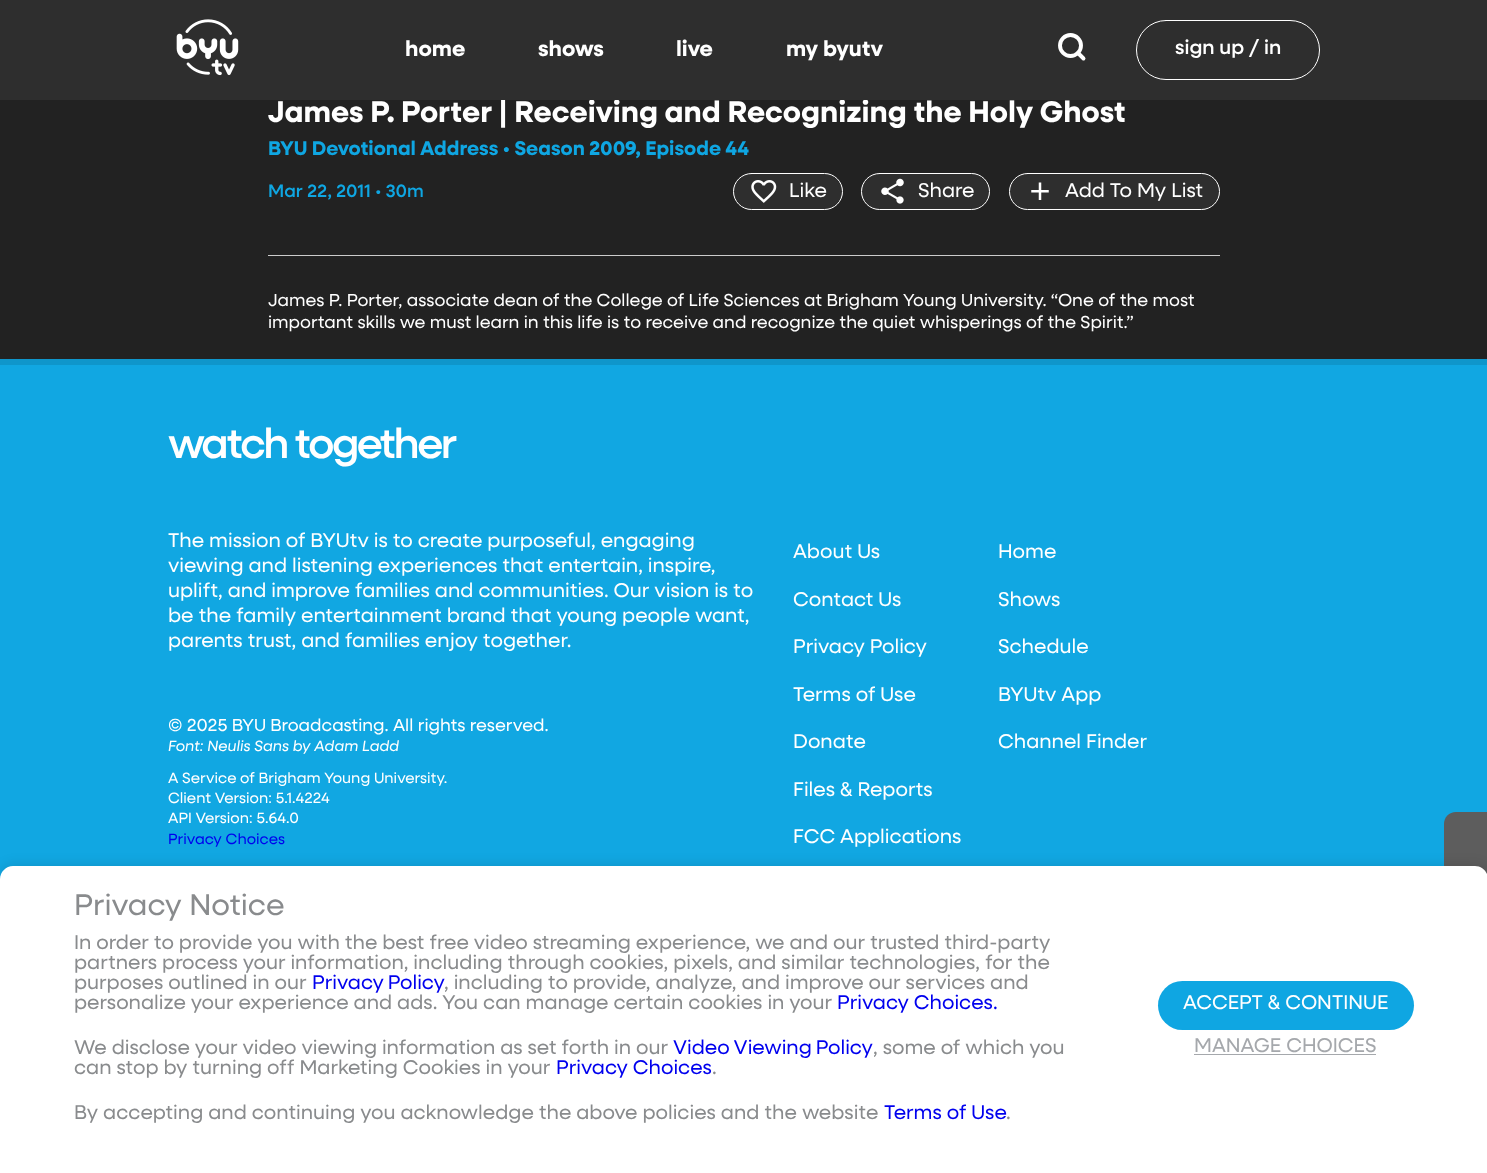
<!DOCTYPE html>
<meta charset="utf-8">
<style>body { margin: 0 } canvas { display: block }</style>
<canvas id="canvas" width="1487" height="1173"></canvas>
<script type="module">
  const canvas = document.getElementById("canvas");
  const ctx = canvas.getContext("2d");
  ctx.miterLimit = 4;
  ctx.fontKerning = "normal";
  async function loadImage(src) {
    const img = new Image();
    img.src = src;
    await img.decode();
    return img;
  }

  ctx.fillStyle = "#222222";
  ctx.fillRect(0, 0, 1487, 1173);
  ctx.font = "bold 30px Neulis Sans";
  ctx.fillStyle = "#ffffff";
  ctx.fillText("James P. Porter | Receiving and Recognizing the Holy Ghost", 268, 122);
  ctx.fillStyle = "#2e2e2e";
  ctx.fillRect(0, 0, 1487, 100);
  ctx.drawImage(await loadImage("img1.png"), 176, 19, 63, 57);
  ctx.font = "bold 22px Neulis Sans";
  ctx.fillStyle = "#ffffff";
  ctx.fillText("home", 405, 56);
  ctx.fillText("shows", 538, 56);
  ctx.fillText("live", 676, 56);
  ctx.fillText("my byutv", 786, 56);
  ctx.beginPath();
  ctx.arc(1070.5, 45.5, 10.5, 0, Math.PI * 2);
  ctx.strokeStyle = "#ffffff";
  ctx.lineWidth = 3.9;
  ctx.stroke();
  ctx.beginPath();
  ctx.moveTo(1083.5, 58.5);
  ctx.lineTo(1078, 53);
  ctx.lineCap = "round";
  ctx.lineJoin = "round";
  ctx.stroke();
  ctx.beginPath();
  ctx.roundRect(1136.5, 20.5, 183, 59, 29.5);
  ctx.lineWidth = 1;
  ctx.lineJoin = "miter";
  ctx.stroke();
  ctx.font = "500 20px Neulis Sans";
  ctx.fillText("sign up / in", 1175, 54);
  ctx.font = "bold 20px Neulis Sans";
  ctx.fillStyle = "#0fa6e2";
  ctx.fillText("BYU Devotional Address • Season 2009, Episode 44", 268, 155);
  ctx.font = "500 18px Neulis Sans";
  ctx.fillText("Mar 22, 2011 • 30m", 268, 197);
  ctx.fillStyle = "#2e2e2e";
  ctx.beginPath();
  ctx.roundRect(733.5, 173.5, 109, 36, 18);
  ctx.fill();
  ctx.stroke();
  ctx.drawImage(await loadImage("img2.png"), 751, 180, 26, 23);
  ctx.font = "20px Neulis Sans";
  ctx.fillStyle = "#ffffff";
  ctx.fillText("Like", 789, 197);
  ctx.fillStyle = "#2e2e2e";
  ctx.beginPath();
  ctx.roundRect(861.5, 173.5, 128, 36, 18);
  ctx.fill();
  ctx.stroke();
  ctx.drawImage(await loadImage("img3.png"), 881, 178, 23, 26);
  ctx.fillStyle = "#ffffff";
  ctx.fillText("Share", 918, 197);
  ctx.fillStyle = "#2e2e2e";
  ctx.beginPath();
  ctx.roundRect(1009.5, 173.5, 210, 36, 18);
  ctx.fill();
  ctx.stroke();
  ctx.drawImage(await loadImage("img4.png"), 1031, 182, 18, 18);
  ctx.fillStyle = "#ffffff";
  ctx.fillText("Add To My List", 1065, 197);
  ctx.fillStyle = "#cccccc";
  ctx.fillRect(268, 255, 952, 1);
  ctx.font = "17.5px Neulis Sans";
  ctx.fillStyle = "#ffffff";
  ctx.fillText("James P. Porter, associate dean of the College of Life Sciences at Brigham Young University. “One of the most", 268, 306);
  ctx.fillText("important skills we must learn in this life is to receive and recognize the quiet whisperings of the Spirit.”", 268, 328);
  ctx.fillStyle = "#11a7e2";
  ctx.fillRect(0, 365, 1487, 514);
  ctx.fillStyle = "#0f96cb";
  ctx.fillRect(0, 359, 1487, 6);
  ctx.letterSpacing = "-2.5px";
  ctx.font = "500 42.5px Neulis Sans";
  ctx.fillStyle = "#ffffff";
  ctx.fillText("watch together", 168, 458);
  ctx.letterSpacing = "0px";
  ctx.font = "20px Neulis Sans";
  ctx.fillText("The mission of BYUtv is to create purposeful, engaging", 168, 547);
  ctx.fillText("viewing and listening experiences that entertain, inspire,", 168, 572);
  ctx.fillText("uplift, and improve families and communities. Our vision is to", 168, 597);
  ctx.fillText("be the family entertainment brand that young people want,", 168, 622);
  ctx.fillText("parents trust, and families enjoy together.", 168, 647);
  ctx.font = "17.5px Neulis Sans";
  ctx.fillText("© 2025 BYU Broadcasting. All rights reserved.", 168, 731);
  ctx.font = "italic 15px Neulis Sans";
  ctx.fillText("Font: Neulis Sans by Adam Ladd", 168, 751);
  ctx.font = "15px Neulis Sans";
  ctx.fillText("A Service of Brigham Young University.", 168, 783);
  ctx.fillText("Client Version: 5.1.4224", 168, 803);
  ctx.fillText("API Version: 5.64.0", 168, 823);
  ctx.fillStyle = "#0000ee";
  ctx.fillText("Privacy Choices", 168, 844);
  ctx.font = "20px Neulis Sans";
  ctx.fillStyle = "#ffffff";
  ctx.fillText("About Us", 793, 558);
  ctx.fillText("Contact Us", 793, 606);
  ctx.fillText("Privacy Policy", 793, 653);
  ctx.fillText("Terms of Use", 793, 701);
  ctx.fillText("Donate", 793, 748);
  ctx.fillText("Files & Reports", 793, 796);
  ctx.fillText("FCC Applications", 793, 843);
  ctx.fillText("Home", 998, 558);
  ctx.fillText("Shows", 998, 606);
  ctx.fillText("Schedule", 998, 653);
  ctx.fillText("BYUtv App", 998, 701);
  ctx.fillText("Channel Finder", 998, 748);
  ctx.fillStyle = "#5d5d5d";
  ctx.beginPath();
  ctx.moveTo(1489, 998);
  ctx.lineTo(1456, 998);
  ctx.bezierCurveTo(1449, 998, 1444, 992, 1444, 985);
  ctx.lineTo(1444, 824);
  ctx.bezierCurveTo(1444, 817, 1449, 812, 1456, 812);
  ctx.lineTo(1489, 812);
  ctx.closePath();
  ctx.fill();
  ctx.fillStyle = "rgba(0, 0, 0, 0.1)";
  ctx.filter = "blur(6px)";
  ctx.beginPath();
  ctx.roundRect(0, 864, 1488, 307, 13);
  ctx.fill();
  ctx.filter = "none";
  ctx.fillStyle = "#ffffff";
  ctx.beginPath();
  ctx.moveTo(13, 866);
  ctx.lineTo(1475, 866);
  ctx.bezierCurveTo(1482, 866, 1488, 872, 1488, 879);
  ctx.lineTo(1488, 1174);
  ctx.lineTo(0, 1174);
  ctx.lineTo(0, 879);
  ctx.bezierCurveTo(0, 872, 6, 866, 13, 866);
  ctx.closePath();
  ctx.fill();
  ctx.font = "30px Neulis Sans";
  ctx.fillStyle = "#898b8d";
  ctx.fillText("Privacy Notice", 74, 915);
  ctx.font = "20px Neulis Sans";
  ctx.fillText("In order to provide you with the best free video streaming experience, we and our trusted third-party", 74, 949);
  ctx.fillText("partners process your information, including through cookies, pixels, and similar technologies, for the", 74, 969);
  ctx.fillText("purposes outlined in our", 74, 989);
  ctx.wordSpacing = "-1px";
  ctx.fillStyle = "#0000ee";
  ctx.fillText("Privacy Policy", 312, 989);
  ctx.wordSpacing = "0px";
  ctx.fillStyle = "#898b8d";
  ctx.fillText(", including to provide, analyze, and improve our services and", 444, 989);
  ctx.fillText("personalize your experience and ads. You can manage certain cookies in your", 74, 1009);
  ctx.fillStyle = "#0000ee";
  ctx.fillText("Privacy Choices.", 837, 1009);
  ctx.fillStyle = "#898b8d";
  ctx.fillText("We disclose your video viewing information as set forth in our", 74, 1054);
  ctx.wordSpacing = "-1px";
  ctx.fillStyle = "#0000ee";
  ctx.fillText("Video Viewing Policy", 673, 1054);
  ctx.wordSpacing = "0px";
  ctx.fillStyle = "#898b8d";
  ctx.fillText(", some of which you", 873, 1054);
  ctx.fillText("can stop by turning off Marketing Cookies in your", 74, 1074);
  ctx.fillStyle = "#0000ee";
  ctx.fillText("Privacy Choices", 556, 1074);
  ctx.fillStyle = "#898b8d";
  ctx.fillText(".", 712, 1074);
  ctx.fillText("By accepting and continuing you acknowledge the above policies and the website", 74, 1119);
  ctx.fillStyle = "#0000ee";
  ctx.fillText("Terms of Use", 884, 1119);
  ctx.fillStyle = "#898b8d";
  ctx.fillText(".", 1006, 1119);
  ctx.fillStyle = "#0fa6e2";
  ctx.beginPath();
  ctx.roundRect(1158, 981, 256, 49, 24.5);
  ctx.fill();
  ctx.fillStyle = "#ffffff";
  ctx.fillText("ACCEPT & CONTINUE", 1183, 1009);
  ctx.fillStyle = "#a5a8ac";
  ctx.fillText("MANAGE CHOICES", 1194, 1052);
  ctx.fillRect(1194, 1054, 182, 1);
</script>
